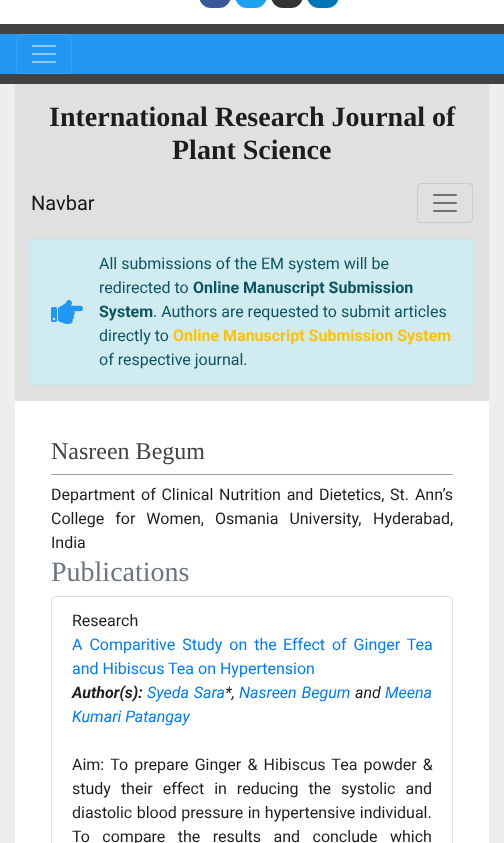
<!DOCTYPE html>
<meta charset="utf-8">
<style>body { margin: 0 } canvas { display: block }</style>
<canvas id="canvas" width="504" height="843"></canvas>
<script type="module">
  const canvas = document.getElementById("canvas");
  const ctx = canvas.getContext("2d");
  ctx.miterLimit = 4;
  ctx.fontKerning = "normal";
  async function loadImage(src) {
    const img = new Image();
    img.src = src;
    await img.decode();
    return img;
  }

  ctx.fillStyle = "#eeeeee";
  ctx.fillRect(0, 0, 504, 843);
  ctx.fillStyle = "#ffffff";
  ctx.fillRect(0, 0, 504, 24);
  ctx.fillStyle = "#3b5998";
  ctx.beginPath();
  ctx.roundRect(199, -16, 32, 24, 16);
  ctx.fill();
  ctx.fillStyle = "#1da1f2";
  ctx.beginPath();
  ctx.roundRect(235, -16, 32, 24, 16);
  ctx.fill();
  ctx.fillStyle = "#333333";
  ctx.beginPath();
  ctx.roundRect(271, -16, 32, 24, 16);
  ctx.fill();
  ctx.fillStyle = "#0077b5";
  ctx.beginPath();
  ctx.roundRect(307, -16, 32, 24, 16);
  ctx.fill();
  ctx.fillStyle = "#2196f3";
  ctx.fillRect(0, 34, 504, 40);
  ctx.fillStyle = "#424242";
  ctx.fillRect(0, 24, 504, 10);
  ctx.fillRect(0, 74, 504, 10);
  ctx.beginPath();
  ctx.roundRect(16.5, 34.5, 55, 39, 3.5);
  ctx.strokeStyle = "#37a1f4";
  ctx.stroke();
  ctx.drawImage(await loadImage("img1.png"), 32, 45, 24, 18);
  ctx.fillStyle = "#e0e0e0";
  ctx.fillRect(15, 84, 474, 317);
  ctx.font = "bold 28px Liberation Serif";
  ctx.fillStyle = "#1d1d1d";
  ctx.fillText("International Research Journal of", 49, 126);
  ctx.fillText("Plant Science", 172, 159);
  ctx.font = "20px Roboto";
  ctx.fillStyle = "#161616";
  ctx.fillText("Navbar", 31, 210);
  ctx.beginPath();
  ctx.roundRect(417.5, 183.5, 55, 39, 3.5);
  ctx.strokeStyle = "#cacaca";
  ctx.stroke();
  ctx.drawImage(await loadImage("img2.png"), 433, 194, 24, 18);
  ctx.fillStyle = "#d1ecf1";
  ctx.beginPath();
  ctx.roundRect(30.5, 239.5, 443, 145, 3.5);
  ctx.fill();
  ctx.strokeStyle = "#bee5eb";
  ctx.stroke();
  ctx.drawImage(await loadImage("img3.png"), 51, 300, 32, 24);
  ctx.font = "16px Roboto";
  ctx.fillStyle = "#0c5460";
  ctx.fillText("All submissions of the EM system will be", 99, 269);
  ctx.fillText("redirected to", 99, 293);
  ctx.font = "bold 16px Roboto";
  ctx.fillText("Online Manuscript Submission", 193, 293);
  ctx.fillText("System", 99, 317);
  ctx.font = "16px Roboto";
  ctx.fillText(". Authors are requested to submit articles", 153, 317);
  ctx.fillText("directly to", 99, 341);
  ctx.font = "bold 16px Roboto";
  ctx.fillStyle = "#ffc107";
  ctx.fillText("Online Manuscript Submission System", 173, 341);
  ctx.font = "16px Roboto";
  ctx.fillStyle = "#0c5460";
  ctx.fillText("of respective journal.", 99, 365);
  ctx.fillStyle = "#ffffff";
  ctx.fillRect(15, 401, 474, 442);
  ctx.fillStyle = "#9e9e9e";
  ctx.fillRect(51, 474, 402, 1);
  ctx.font = "24px Liberation Serif";
  ctx.fillStyle = "#424242";
  ctx.fillText("Nasreen Begum", 51, 459);
  ctx.wordSpacing = "1.75px";
  ctx.font = "16px Roboto";
  ctx.fillStyle = "#1d1d1d";
  ctx.fillText("Department of Clinical Nutrition and Dietetics,", 51, 500);
  ctx.wordSpacing = "2px";
  ctx.fillText("St. Ann’s", 390, 500);
  ctx.wordSpacing = "7px";
  ctx.fillText("College for Women,", 51, 524);
  ctx.fillText("Osmania University,", 215, 524);
  ctx.wordSpacing = "0px";
  ctx.fillText("Hyderabad,", 373, 524);
  ctx.fillText("India", 51, 548);
  ctx.font = "28px Liberation Serif";
  ctx.fillStyle = "#6c757d";
  ctx.fillText("Publications", 51, 581);
  ctx.beginPath();
  ctx.roundRect(51.5, 596.5, 401, 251, 3.5);
  ctx.strokeStyle = "#dfdfdf";
  ctx.stroke();
  ctx.font = "16px Roboto";
  ctx.fillStyle = "#1d1d1d";
  ctx.fillText("Research", 72, 626);
  ctx.wordSpacing = "3px";
  ctx.fillStyle = "#007bff";
  ctx.fillText("A Comparitive Study on the", 72, 650);
  ctx.fillText("Effect of Ginger Tea", 283, 650);
  ctx.wordSpacing = "0px";
  ctx.fillText("and Hibiscus Tea on Hypertension", 72, 674);
  ctx.font = "italic bold 16px Roboto";
  ctx.fillStyle = "#1d1d1d";
  ctx.fillText("Author(s):", 72, 698);
  ctx.wordSpacing = "1px";
  ctx.font = "italic 16px Roboto";
  ctx.fillStyle = "#007bff";
  ctx.fillText("Syeda Sara", 147, 698);
  ctx.wordSpacing = "0px";
  ctx.fillStyle = "#1d1d1d";
  ctx.fillText("*,", 225, 698);
  ctx.wordSpacing = "1px";
  ctx.fillStyle = "#007bff";
  ctx.fillText("Nasreen Begum", 239, 698);
  ctx.wordSpacing = "0px";
  ctx.fillStyle = "#1d1d1d";
  ctx.fillText("and", 355, 698);
  ctx.fillStyle = "#007bff";
  ctx.fillText("Meena", 385, 698);
  ctx.fillText("Kumari Patangay", 72, 722);
  ctx.wordSpacing = "2.25px";
  ctx.font = "16px Roboto";
  ctx.fillStyle = "#1d1d1d";
  ctx.fillText("Aim: To prepare Ginger & Hibiscus Tea powder &", 72, 770);
  ctx.wordSpacing = "6px";
  ctx.fillText("study their effect in reducing the systolic and", 72, 794);
  ctx.wordSpacing = "0.5px";
  ctx.fillText("diastolic blood pressure in hypertensive individual.", 72, 818);
  ctx.wordSpacing = "8.5px";
  ctx.fillText("To compare the results and conclude which", 72, 842);
</script>
